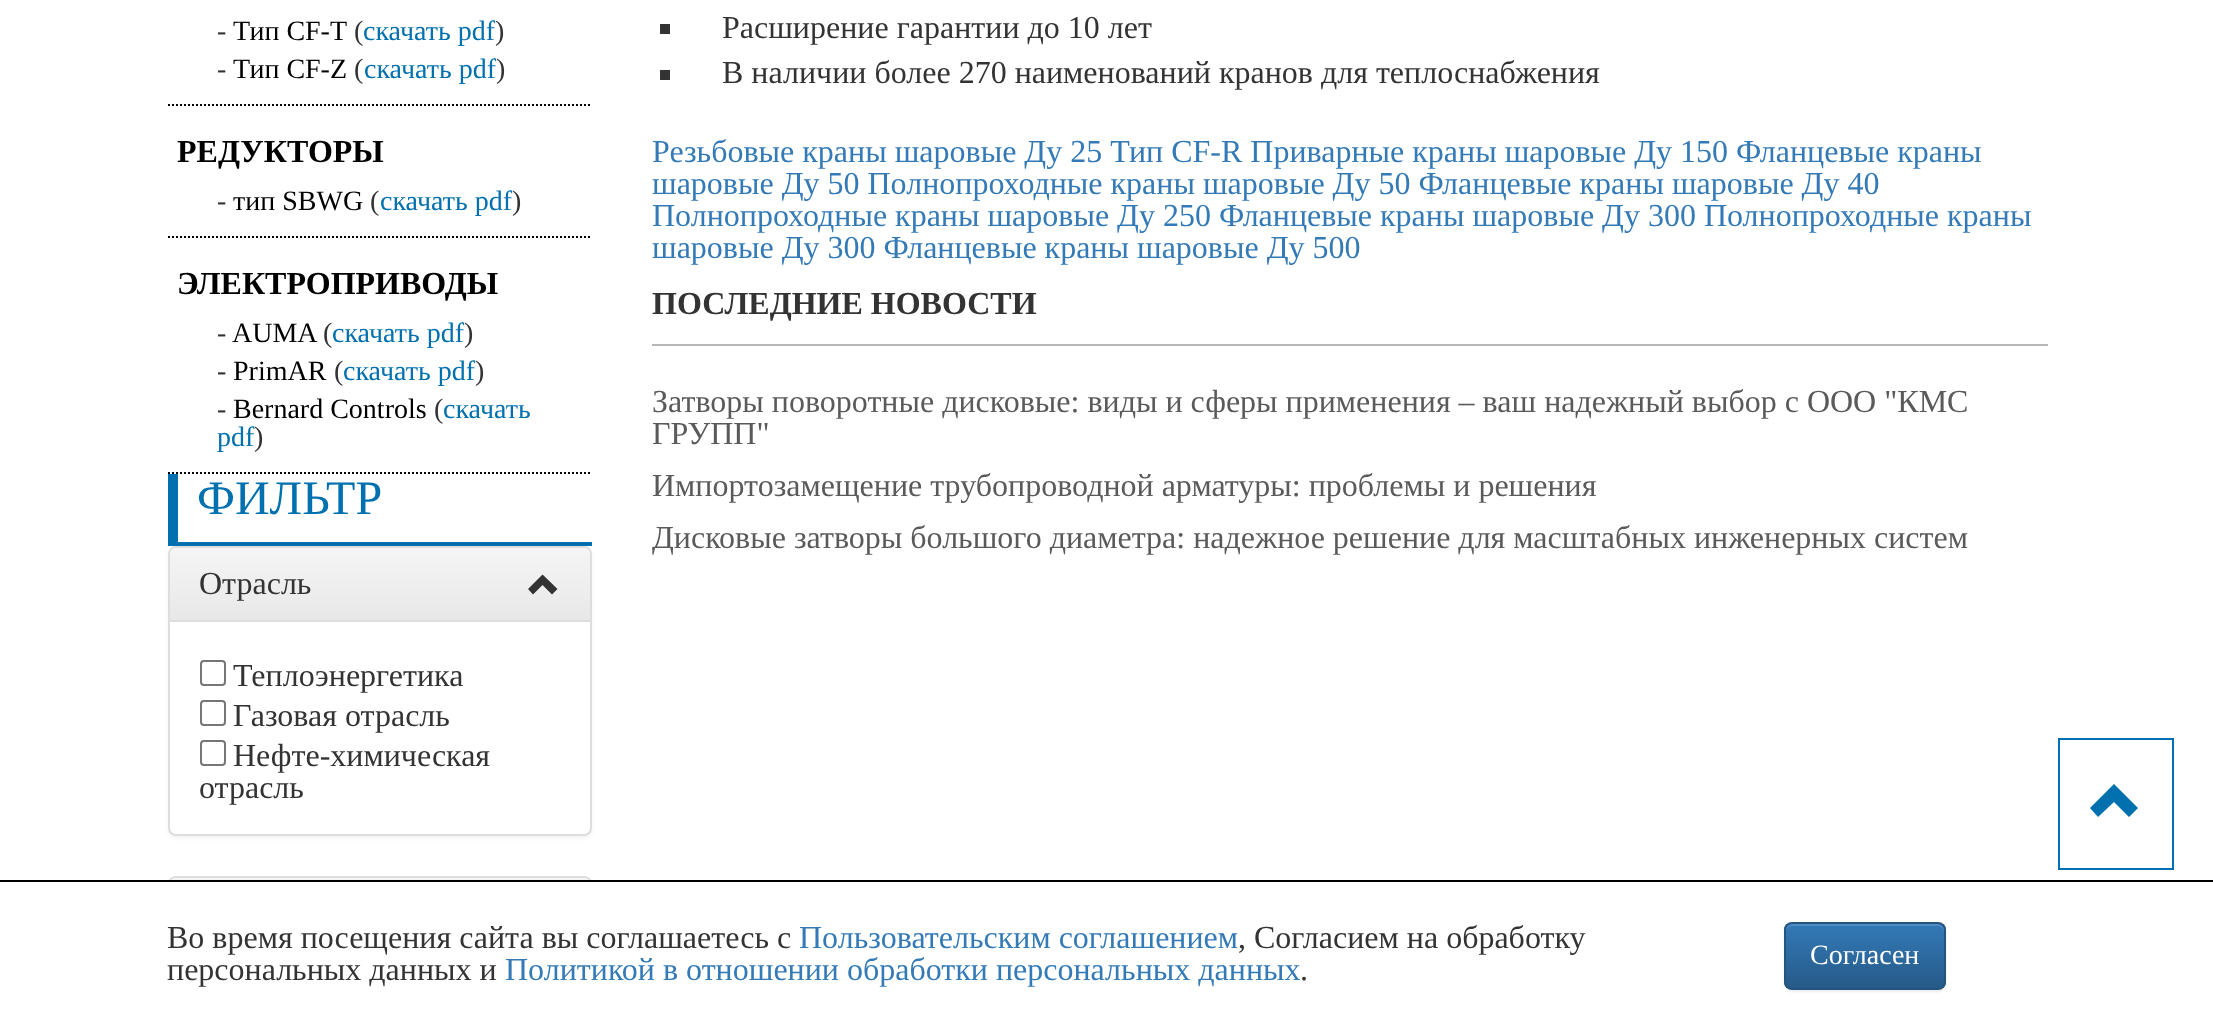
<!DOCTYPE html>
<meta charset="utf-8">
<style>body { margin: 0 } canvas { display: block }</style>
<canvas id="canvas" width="2213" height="1029"></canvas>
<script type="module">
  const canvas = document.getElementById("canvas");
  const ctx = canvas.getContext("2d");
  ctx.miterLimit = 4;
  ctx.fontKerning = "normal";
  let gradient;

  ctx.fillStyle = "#ffffff";
  ctx.fillRect(0, 0, 2213, 1029);
  ctx.beginPath();
  ctx.moveTo(168, 105);
  ctx.lineTo(592, 105);
  ctx.strokeStyle = "#000000";
  ctx.lineWidth = 2;
  ctx.setLineDash([2, 2]);
  ctx.stroke();
  ctx.font = "28px Liberation Serif";
  ctx.fillStyle = "#333333";
  ctx.fillText("-", 217, 40);
  ctx.fillStyle = "#000000";
  ctx.fillText("Тип CF-T", 233, 40);
  ctx.fillStyle = "#333333";
  ctx.fillText("(", 354, 40);
  ctx.fillStyle = "#0070af";
  ctx.fillText("скачать pdf", 363, 40);
  ctx.fillStyle = "#333333";
  ctx.fillText(")", 495, 40);
  ctx.fillText("-", 217, 78);
  ctx.fillStyle = "#000000";
  ctx.fillText("Тип CF-Z", 233, 78);
  ctx.fillStyle = "#333333";
  ctx.fillText("(", 354, 78);
  ctx.fillStyle = "#0070af";
  ctx.fillText("скачать pdf", 364, 78);
  ctx.fillStyle = "#333333";
  ctx.fillText(")", 496, 78);
  ctx.beginPath();
  ctx.moveTo(168, 237);
  ctx.lineTo(592, 237);
  ctx.stroke();
  ctx.font = "bold 32px Liberation Serif";
  ctx.fillStyle = "#000000";
  ctx.fillText("РЕДУКТОРЫ", 177, 162);
  ctx.font = "28px Liberation Serif";
  ctx.fillStyle = "#333333";
  ctx.fillText("-", 217, 210);
  ctx.fillStyle = "#000000";
  ctx.fillText("тип SBWG", 233, 210);
  ctx.fillStyle = "#333333";
  ctx.fillText("(", 370, 210);
  ctx.fillStyle = "#0070af";
  ctx.fillText("скачать pdf", 380, 210);
  ctx.fillStyle = "#333333";
  ctx.fillText(")", 512, 210);
  ctx.beginPath();
  ctx.moveTo(168, 473);
  ctx.lineTo(592, 473);
  ctx.stroke();
  ctx.font = "bold 32px Liberation Serif";
  ctx.fillStyle = "#000000";
  ctx.fillText("ЭЛЕКТРОПРИВОДЫ", 177, 294);
  ctx.font = "28px Liberation Serif";
  ctx.fillStyle = "#333333";
  ctx.fillText("-", 217, 342);
  ctx.fillStyle = "#000000";
  ctx.fillText("AUMA", 232, 342);
  ctx.fillStyle = "#333333";
  ctx.fillText("(", 323, 342);
  ctx.fillStyle = "#0070af";
  ctx.fillText("скачать pdf", 332, 342);
  ctx.fillStyle = "#333333";
  ctx.fillText(")", 464, 342);
  ctx.fillText("-", 217, 380);
  ctx.fillStyle = "#000000";
  ctx.fillText("PrimAR", 233, 380);
  ctx.fillStyle = "#333333";
  ctx.fillText("(", 334, 380);
  ctx.fillStyle = "#0070af";
  ctx.fillText("скачать pdf", 343, 380);
  ctx.fillStyle = "#333333";
  ctx.fillText(")", 475, 380);
  ctx.fillText("-", 217, 418);
  ctx.fillStyle = "#000000";
  ctx.fillText("Bernard Controls", 233, 418);
  ctx.fillStyle = "#333333";
  ctx.fillText("(", 434, 418);
  ctx.fillStyle = "#0070af";
  ctx.fillText("скачать", 443, 418);
  ctx.fillText("pdf", 217, 446);
  ctx.fillStyle = "#333333";
  ctx.fillText(")", 254, 446);
  ctx.fillStyle = "#0070af";
  ctx.fillRect(178, 542, 414, 4);
  ctx.fillRect(168, 474, 10, 72);
  ctx.font = "48px Liberation Serif";
  ctx.fillText("ФИЛЬТР", 197, 514);
  ctx.fillStyle = "rgba(0, 0, 0, 0.05)";
  ctx.filter = "blur(2px)";
  ctx.beginPath();
  ctx.roundRect(168, 548, 424, 290, 8);
  ctx.fill();
  ctx.filter = "none";
  ctx.fillStyle = "#ffffff";
  ctx.beginPath();
  ctx.roundRect(169, 547, 422, 288, 7);
  ctx.fill();
  ctx.strokeStyle = "#dddddd";
  ctx.setLineDash([]);
  ctx.stroke();
  gradient = ctx.createLinearGradient(380, 548, 380, 620);
  gradient.addColorStop(0, "#f5f5f5");
  gradient.addColorStop(1, "#e8e8e8");
  ctx.fillStyle = gradient;
  ctx.beginPath();
  ctx.roundRect(170, 548, 420, 72, [6, 6, 0, 0]);
  ctx.fill();
  ctx.fillStyle = "#dddddd";
  ctx.fillRect(170, 620, 420, 2);
  ctx.font = "32px Liberation Serif";
  ctx.fillStyle = "#333333";
  ctx.fillText("Отрасль", 199, 594);
  ctx.beginPath();
  ctx.moveTo(557.5, 589);
  ctx.lineTo(552, 594.5);
  ctx.lineTo(542.5, 585);
  ctx.lineTo(533, 594.5);
  ctx.lineTo(528, 589);
  ctx.lineTo(542.5, 574.5);
  ctx.closePath();
  ctx.fill();
  ctx.beginPath();
  ctx.roundRect(201, 661, 24, 24, 3);
  ctx.strokeStyle = "#767676";
  ctx.stroke();
  ctx.fillText("Теплоэнергетика", 233, 686);
  ctx.beginPath();
  ctx.roundRect(201, 701, 24, 24, 3);
  ctx.stroke();
  ctx.fillText("Газовая отрасль", 233, 726);
  ctx.beginPath();
  ctx.roundRect(201, 741, 24, 24, 3);
  ctx.stroke();
  ctx.fillText("Нефте-химическая", 233, 766);
  ctx.fillText("отрасль", 199, 798);
  ctx.beginPath();
  ctx.roundRect(169, 877, 422, 76, 7);
  ctx.strokeStyle = "#dddddd";
  ctx.stroke();
  gradient = ctx.createLinearGradient(380, 878, 380, 950);
  gradient.addColorStop(0, "#f5f5f5");
  gradient.addColorStop(1, "#e8e8e8");
  ctx.fillStyle = gradient;
  ctx.beginPath();
  ctx.roundRect(170, 878, 420, 72, [6, 6, 0, 0]);
  ctx.fill();
  ctx.fillStyle = "#333333";
  ctx.fillRect(660, 24, 10, 10);
  ctx.fillText("Расширение гарантии до 10 лет", 722, 38);
  ctx.fillRect(660, 70, 10, 10);
  ctx.fillText("В наличии более 270 наименований кранов для теплоснабжения", 722, 83);
  ctx.fillStyle = "#337ab7";
  ctx.fillText("Резьбовые краны шаровые Ду 25 Тип CF-R Приварные краны шаровые Ду 150 Фланцевые краны", 652, 162);
  ctx.fillText("шаровые Ду 50 Полнопроходные краны шаровые Ду 50 Фланцевые краны шаровые Ду 40", 652, 194);
  ctx.fillText("Полнопроходные краны шаровые Ду 250 Фланцевые краны шаровые Ду 300 Полнопроходные краны", 652, 226);
  ctx.fillText("шаровые Ду 300 Фланцевые краны шаровые Ду 500", 652, 258);
  ctx.fillStyle = "#b7b7b7";
  ctx.fillRect(652, 344, 1396, 2);
  ctx.font = "bold 32px Liberation Serif";
  ctx.fillStyle = "#333333";
  ctx.fillText("ПОСЛЕДНИЕ НОВОСТИ", 652, 314);
  ctx.font = "32px Liberation Serif";
  ctx.fillStyle = "#5a5a5a";
  ctx.fillText("Затворы поворотные дисковые: виды и сферы применения – ваш надежный выбор с ООО \"КМС", 652, 412);
  ctx.fillText("ГРУПП\"", 652, 444);
  ctx.fillText("Импортозамещение трубопроводной арматуры: проблемы и решения", 652, 496);
  ctx.fillText("Дисковые затворы большого диаметра: надежное решение для масштабных инженерных систем", 652, 548);
  ctx.strokeStyle = "#0070af";
  ctx.strokeRect(2059, 739, 114, 130);
  ctx.fillStyle = "#0070af";
  ctx.beginPath();
  ctx.moveTo(2138, 808);
  ctx.lineTo(2129, 817);
  ctx.lineTo(2114, 802);
  ctx.lineTo(2098, 817);
  ctx.lineTo(2090, 808);
  ctx.lineTo(2114, 784);
  ctx.closePath();
  ctx.fill();
  ctx.fillStyle = "#ffffff";
  ctx.fillRect(168, 882, 424, 72);
  ctx.fillStyle = "#000000";
  ctx.fillRect(0, 880, 2213, 2);
  ctx.fillStyle = "#333333";
  ctx.fillText("Во время посещения сайта вы соглашаетесь с", 167, 948);
  ctx.fillStyle = "#337ab7";
  ctx.fillText("Пользовательским соглашением", 799, 948);
  ctx.fillStyle = "#333333";
  ctx.fillText(", Согласием на обработку", 1238, 948);
  ctx.fillText("персональных данных и", 167, 980);
  ctx.fillStyle = "#337ab7";
  ctx.fillText("Политикой в отношении обработки персональных данных", 505, 980);
  ctx.fillStyle = "#333333";
  ctx.fillText(".", 1300, 980);
  ctx.fillStyle = "rgba(0, 0, 0, 0.07)";
  ctx.filter = "blur(1px)";
  ctx.beginPath();
  ctx.roundRect(1784, 924, 162, 68, 8);
  ctx.fill();
  ctx.filter = "none";
  ctx.save();
  ctx.beginPath();
  ctx.roundRect(1784, 922, 162, 68, 8);
  ctx.clip();
  gradient = ctx.createLinearGradient(1865, 924, 1865, 988);
  gradient.addColorStop(0, "#337ab7");
  gradient.addColorStop(1, "#265a88");
  ctx.fillStyle = gradient;
  ctx.fillRect(1784, 924, 162, 64);
  ctx.restore();
  ctx.fillStyle = "rgba(255, 255, 255, 0.15)";
  ctx.beginPath();
  ctx.moveTo(1792, 926);
  ctx.lineTo(1938, 926);
  ctx.bezierCurveTo(1941, 926, 1944, 929, 1944, 932);
  ctx.lineTo(1944, 930);
  ctx.bezierCurveTo(1944, 927, 1941, 924, 1938, 924);
  ctx.lineTo(1792, 924);
  ctx.bezierCurveTo(1789, 924, 1786, 927, 1786, 930);
  ctx.lineTo(1786, 932);
  ctx.bezierCurveTo(1786, 929, 1789, 926, 1792, 926);
  ctx.closePath();
  ctx.fill();
  ctx.beginPath();
  ctx.roundRect(1785, 923, 160, 66, 7);
  ctx.strokeStyle = "#245580";
  ctx.stroke();
  ctx.font = "28px Liberation Serif";
  ctx.fillStyle = "#ffffff";
  ctx.fillText("Согласен", 1810, 964);
</script>
